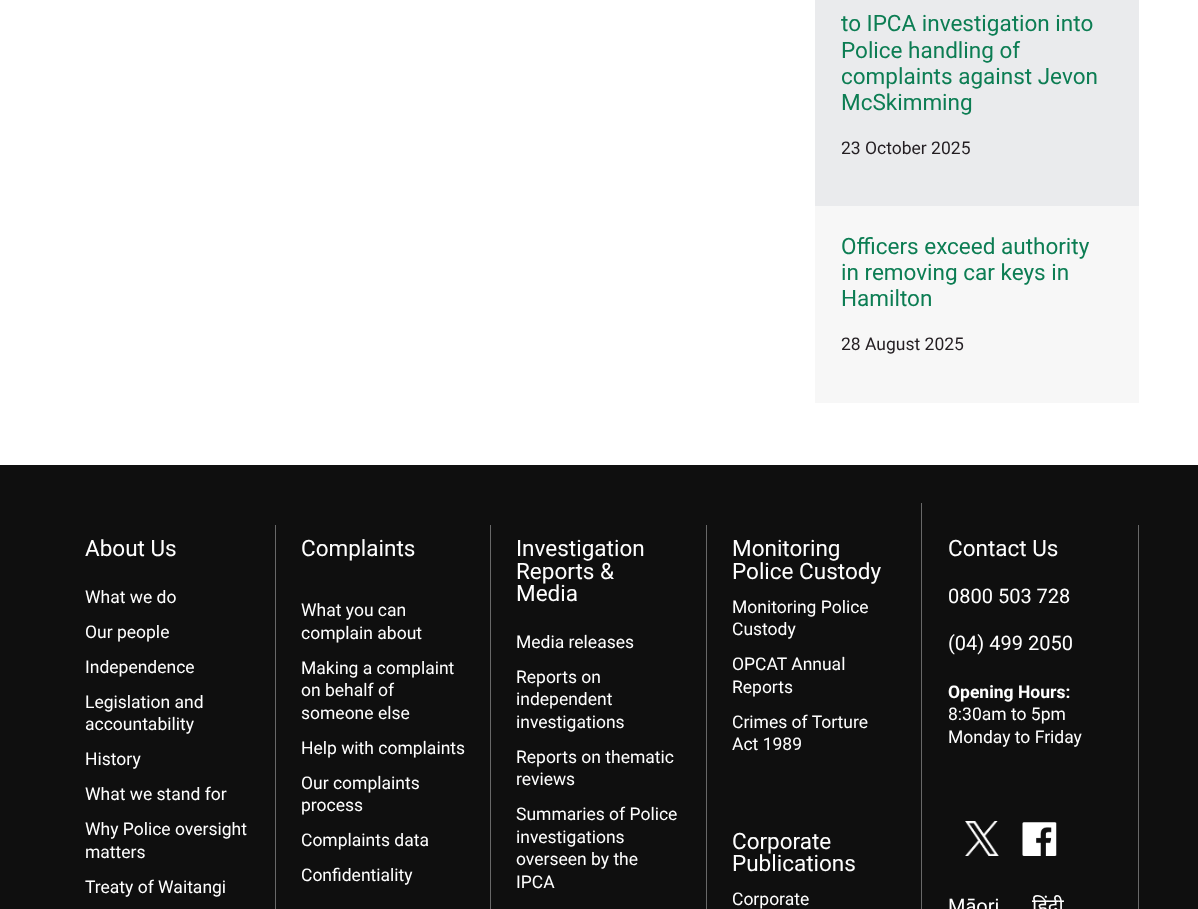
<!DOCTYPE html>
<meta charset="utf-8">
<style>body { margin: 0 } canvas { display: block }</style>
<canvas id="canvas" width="1198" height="909"></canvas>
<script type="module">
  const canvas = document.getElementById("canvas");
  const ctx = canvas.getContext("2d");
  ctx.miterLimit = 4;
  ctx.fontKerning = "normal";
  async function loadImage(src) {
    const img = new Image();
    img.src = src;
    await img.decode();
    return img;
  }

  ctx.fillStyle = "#ffffff";
  ctx.fillRect(0, 0, 1198, 909);
  ctx.fillStyle = "#eaebed";
  ctx.fillRect(815, 0, 324, 206);
  ctx.font = "22.5px Roboto";
  ctx.fillStyle = "#0c7d53";
  ctx.fillText("to IPCA investigation into", 841, 31);
  ctx.fillText("Police handling of", 841, 58);
  ctx.fillText("complaints against Jevon", 841, 84);
  ctx.fillText("McSkimming", 841, 110);
  ctx.font = "17.5px Roboto";
  ctx.fillStyle = "#231e22";
  ctx.fillText("23 October 2025", 841, 154);
  ctx.fillStyle = "#f7f7f7";
  ctx.fillRect(815, 206, 324, 197);
  ctx.font = "22.5px Roboto";
  ctx.fillStyle = "#0c7d53";
  ctx.fillText("Officers exceed authority", 841, 254);
  ctx.fillText("in removing car keys in", 841, 280);
  ctx.fillText("Hamilton", 841, 306);
  ctx.font = "17.5px Roboto";
  ctx.fillStyle = "#231e22";
  ctx.fillText("28 August 2025", 841, 350);
  ctx.fillStyle = "#0f0f0f";
  ctx.fillRect(0, 465, 1198, 444);
  ctx.fillStyle = "#686868";
  ctx.fillRect(275, 525, 1, 384);
  ctx.font = "22.5px Roboto";
  ctx.fillStyle = "#ffffff";
  ctx.fillText("About Us", 85, 556);
  ctx.font = "17.5px Roboto";
  ctx.fillText("What we do", 85, 603);
  ctx.fillText("Our people", 85, 638);
  ctx.fillText("Independence", 85, 673);
  ctx.fillText("Legislation and", 85, 708);
  ctx.fillText("accountability", 85, 730);
  ctx.fillText("History", 85, 765);
  ctx.fillText("What we stand for", 85, 800);
  ctx.fillText("Why Police oversight", 85, 835);
  ctx.fillText("matters", 85, 858);
  ctx.fillText("Treaty of Waitangi", 85, 893);
  ctx.fillStyle = "#686868";
  ctx.fillRect(490, 525, 1, 384);
  ctx.font = "22.5px Roboto";
  ctx.fillStyle = "#ffffff";
  ctx.fillText("Complaints", 301, 556);
  ctx.font = "17.5px Roboto";
  ctx.fillText("What you can", 301, 616);
  ctx.fillText("complain about", 301, 639);
  ctx.fillText("Making a complaint", 301, 674);
  ctx.fillText("on behalf of", 301, 696);
  ctx.fillText("someone else", 301, 719);
  ctx.fillText("Help with complaints", 301, 754);
  ctx.fillText("Our complaints", 301, 789);
  ctx.fillText("process", 301, 811);
  ctx.fillText("Complaints data", 301, 846);
  ctx.fillText("Confidentiality", 301, 881);
  ctx.fillStyle = "#686868";
  ctx.fillRect(706, 525, 1, 384);
  ctx.font = "22.5px Roboto";
  ctx.fillStyle = "#ffffff";
  ctx.fillText("Investigation", 516, 556);
  ctx.fillText("Reports &", 516, 579);
  ctx.fillText("Media", 516, 601);
  ctx.font = "17.5px Roboto";
  ctx.fillText("Media releases", 516, 648);
  ctx.fillText("Reports on", 516, 683);
  ctx.fillText("independent", 516, 705);
  ctx.fillText("investigations", 516, 728);
  ctx.fillText("Reports on thematic", 516, 763);
  ctx.fillText("reviews", 516, 785);
  ctx.fillText("Summaries of Police", 516, 820);
  ctx.fillText("investigations", 516, 843);
  ctx.fillText("overseen by the", 516, 865);
  ctx.fillText("IPCA", 516, 888);
  ctx.fillStyle = "#686868";
  ctx.fillRect(921, 503, 1, 406);
  ctx.font = "22.5px Roboto";
  ctx.fillStyle = "#ffffff";
  ctx.fillText("Monitoring", 732, 556);
  ctx.fillText("Police Custody", 732, 579);
  ctx.font = "17.5px Roboto";
  ctx.fillText("Monitoring Police", 732, 613);
  ctx.fillText("Custody", 732, 635);
  ctx.fillText("OPCAT Annual", 732, 670);
  ctx.fillText("Reports", 732, 693);
  ctx.fillText("Crimes of Torture", 732, 728);
  ctx.fillText("Act 1989", 732, 750);
  ctx.font = "22.5px Roboto";
  ctx.fillText("Corporate", 732, 849);
  ctx.fillText("Publications", 732, 871);
  ctx.font = "17.5px Roboto";
  ctx.fillText("Corporate", 732, 905);
  ctx.fillStyle = "#686868";
  ctx.fillRect(1138, 525, 1, 384);
  ctx.font = "22.5px Roboto";
  ctx.fillStyle = "#ffffff";
  ctx.fillText("Contact Us", 948, 556);
  ctx.font = "20px Roboto";
  ctx.fillText("0800 503 728", 948, 603);
  ctx.fillText("(04) 499 2050", 948, 650);
  ctx.font = "bold 17.5px Roboto";
  ctx.fillText("Opening Hours:", 948, 698);
  ctx.font = "17.5px Roboto";
  ctx.fillText("8:30am to 5pm", 948, 720);
  ctx.fillText("Monday to Friday", 948, 743);
  ctx.drawImage(await loadImage("img1.png"), 965, 821, 34, 35);
  ctx.drawImage(await loadImage("img2.png"), 1022, 822, 35, 34);
  ctx.font = "20px Roboto";
  ctx.fillText("Māori", 948, 913);
  ctx.font = "20px Noto Sans";
  ctx.fillText("हिंदी", 1032, 913);
</script>
